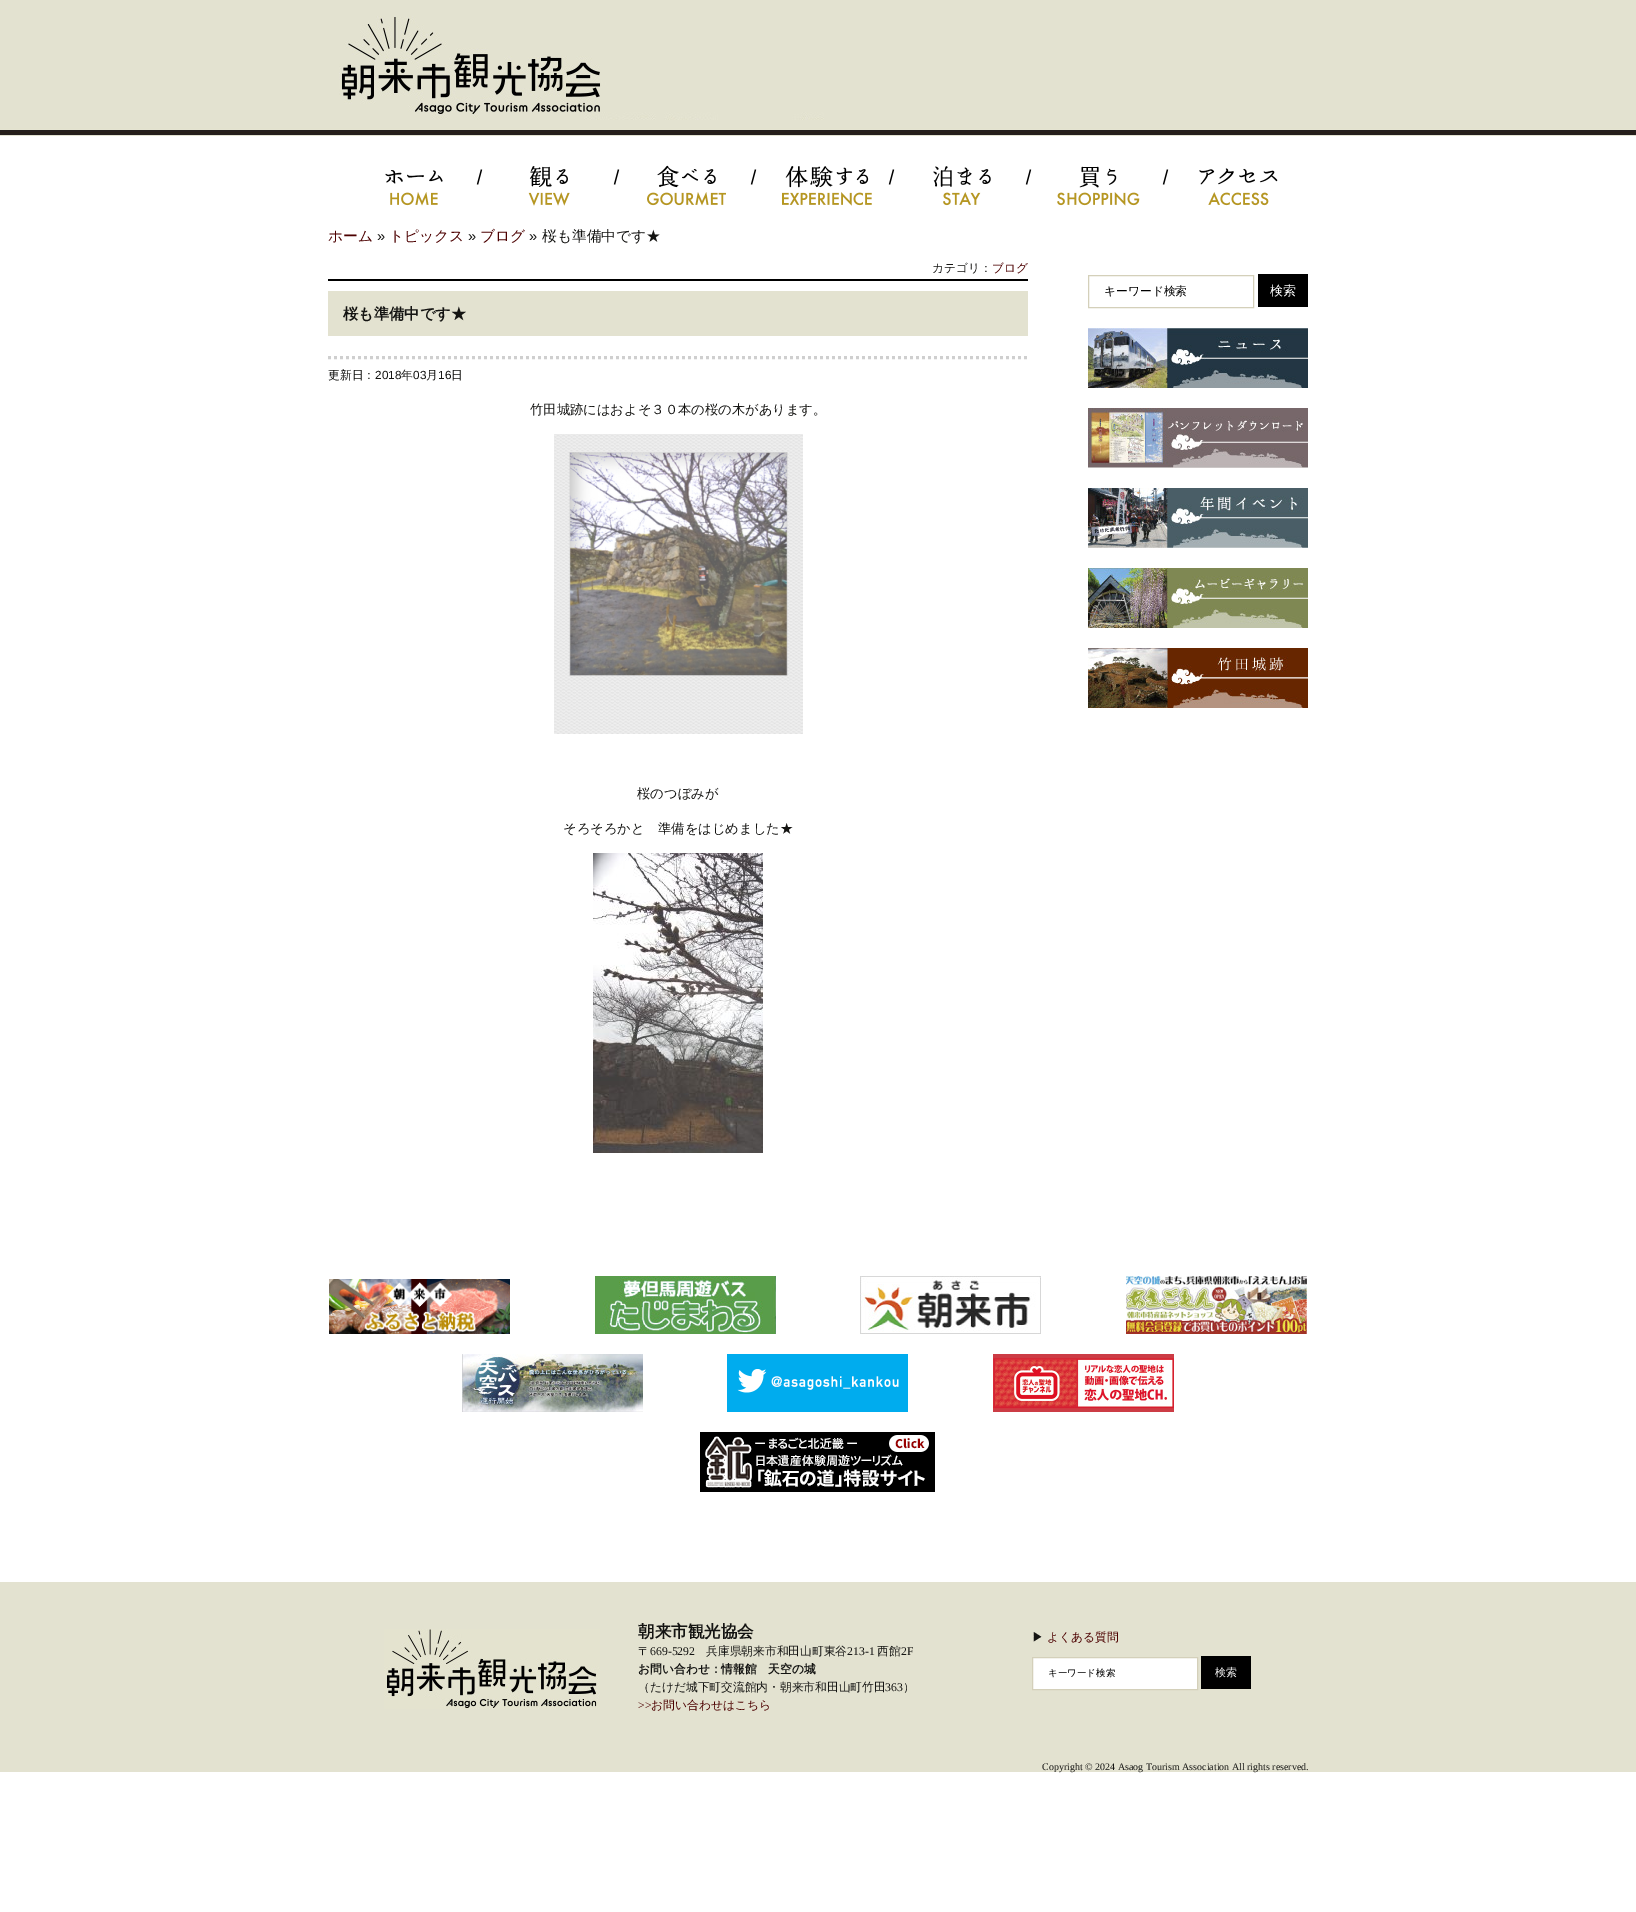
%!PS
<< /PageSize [1636 1912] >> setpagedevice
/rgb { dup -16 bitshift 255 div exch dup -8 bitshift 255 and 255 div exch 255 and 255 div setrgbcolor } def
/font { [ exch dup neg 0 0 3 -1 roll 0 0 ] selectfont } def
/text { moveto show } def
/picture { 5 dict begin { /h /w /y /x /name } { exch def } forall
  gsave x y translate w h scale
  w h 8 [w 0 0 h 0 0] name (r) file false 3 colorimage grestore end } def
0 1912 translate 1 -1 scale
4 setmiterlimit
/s1 { /WenQuanYiZenHei-Medium 14.75 font 16#4C0000 rgb } def
/s2 { /LiberationSans-Regular 14.75 font 16#141412 rgb } def
/s3 { /WenQuanYiZenHei-Medium 14.75 font 16#141412 rgb } def
/s4 { /WenQuanYiZenHei-Medium 11.75 font 16#141412 rgb } def
/s5 { /WenQuanYiZenHei-Medium 11.75 font 16#4C0000 rgb } def
/s6 { /WenQuanYiZenHei-Bold 15.25 font 16#141412 rgb } def
/s7 { /LiberationSans-Regular 11.75 font 16#141412 rgb } def
/s8 { /WenQuanYiZenHei-Medium 13.3 font 16#141412 rgb } def
/s9 { /WenQuanYiZenHei-Medium 11.75 font 16#000000 rgb } def
/s10 { /WenQuanYiZenHei-Medium 13 font 16#FFFFFF rgb } def
/s11 { /WenQuanYiZenHei-Bold 16.5 font 16#141412 rgb } def
/s12 { /LiberationSerif-Regular 11.75 font 16#141412 rgb } def
/s13 { /WenQuanYiZenHei-Bold 11.75 font 16#141412 rgb } def
/s14 { /LiberationSerif-Regular 11.75 font 16#4C0000 rgb } def
/s15 { /WenQuanYiZenHei-Medium 9.5 font 16#000000 rgb } def
/s16 { /WenQuanYiZenHei-Medium 11 font 16#FFFFFF rgb } def
/s17 { /LiberationSerif-Regular 10 font 16#141412 rgb } def
16#FFFFFF rgb
0 0 1636 1912 rectfill
(pic1.raw) 0 0 1636 136 picture
(pic2.raw) 339 16 485 104 picture
(pic3.raw) 385 170 58 36 picture
(pic4.raw) 476 166 94 40 picture
(pic5.raw) 613 165 113 41 picture
(pic6.raw) 750 166 122 40 picture
(pic7.raw) 888 166 103 40 picture
(pic8.raw) 1025 166 115 40 picture
(pic9.raw) 1162 168 116 38 picture
s1
(ホーム) 328 241 text
s2
(») 377 241 text
s1
(トピックス) 389 241 text
s2
(») 468 241 text
s1
(ブログ) 480 241 text
s2
(») 529 241 text
s3
(桜も準備中です★) 542 241 text
s4
(カテゴリ：) 932 272 text
s5
(ブログ) 992 272 text
16#000000 rgb
328 279 700 2 rectfill
16#CFCFCF rgb
3 setlinewidth
[3 3] 0 setdash
328 357.5 moveto 1028 357.5 lineto stroke
16#E3E2D0 rgb
328 291 700 45 rectfill
s6
(桜も準備中です★) 343 319 text
s4
(更新日：) 328 379 text
s7
(2018) 375 379 text
s4
(年) 401 379 text
s7
(03) 413 379 text
s4
(月) 426 379 text
s7
(16) 438 379 text
s4
(日) 451 379 text
s8
(竹田城跡にはおよそ３０本の桜の木があります。) 530 414 text
(pic10.raw) 554 434 249 300 picture
(桜のつぼみが) 637 798 text
(そろそろかと　準備をはじめました★) 563 833 text
(pic11.raw) 593 853 170 300 picture
16#D4D0BA rgb
1 setlinewidth
[] 0 setdash
1088.5 275.5 165 32 rectstroke
s9
(キーワード検索) 1104 295 text
1258 274 50 33 rectfill
s10
(検索) 1270 295 text
(pic12.raw) 1088 328 220 60 picture
(pic13.raw) 1088 408 220 60 picture
(pic14.raw) 1088 488 220 60 picture
(pic15.raw) 1088 568 220 60 picture
(pic16.raw) 1088 648 220 60 picture
(pic17.raw) 329 1279 181 55 picture
(pic18.raw) 595 1276 181 58 picture
(pic19.raw) 860 1276 181 58 picture
(pic20.raw) 1126 1276 181 58 picture
(pic21.raw) 462 1354 181 58 picture
(pic22.raw) 727 1354 181 58 picture
(pic23.raw) 993 1354 181 58 picture
(pic24.raw) 700 1432 235 60 picture
16#E3E2D0 rgb
0 1582 1636 190 rectfill
(pic25.raw) 384 1629 216 80 picture
s11
(朝来市観光協会) 638 1637 text
s4
(〒) 638 1655 text
s12
(669-5292) 650 1655 text
s4
(兵庫県朝来市和田山町東谷) 706 1655 text
s12
(213-1) 847 1655 text
s4
(西館) 877 1655 text
s12
(2F) 901 1655 text
s13
(お問い合わせ：情報館　天空の城) 638 1673 text
s4
(（たけだ城下町交流館内・朝来市和田山町竹田) 638 1691 text
s12
(363) 885 1691 text
s4
(）) 903 1691 text
s14
(>>) 638 1709 text
s5
(お問い合わせはこちら) 651 1709 text
s4
(▶) 1032 1641 text
s5
(よくある質問) 1047 1641 text
16#FFFFFF rgb
1032.5 1657.5 moveto 1197.5 1657.5 lineto 1197.5 1689.5 lineto 1032.5 1689.5 lineto closepath gsave fill grestore
16#D4D0BA rgb
stroke
s15
(キーワード検索) 1048 1676 text
1201 1656 50 33 rectfill
s16
(検索) 1215 1676 text
s17
(Copyright © 2024 Asaog Tourism Association All rights reserved.) 1042 1770 text
showpage
